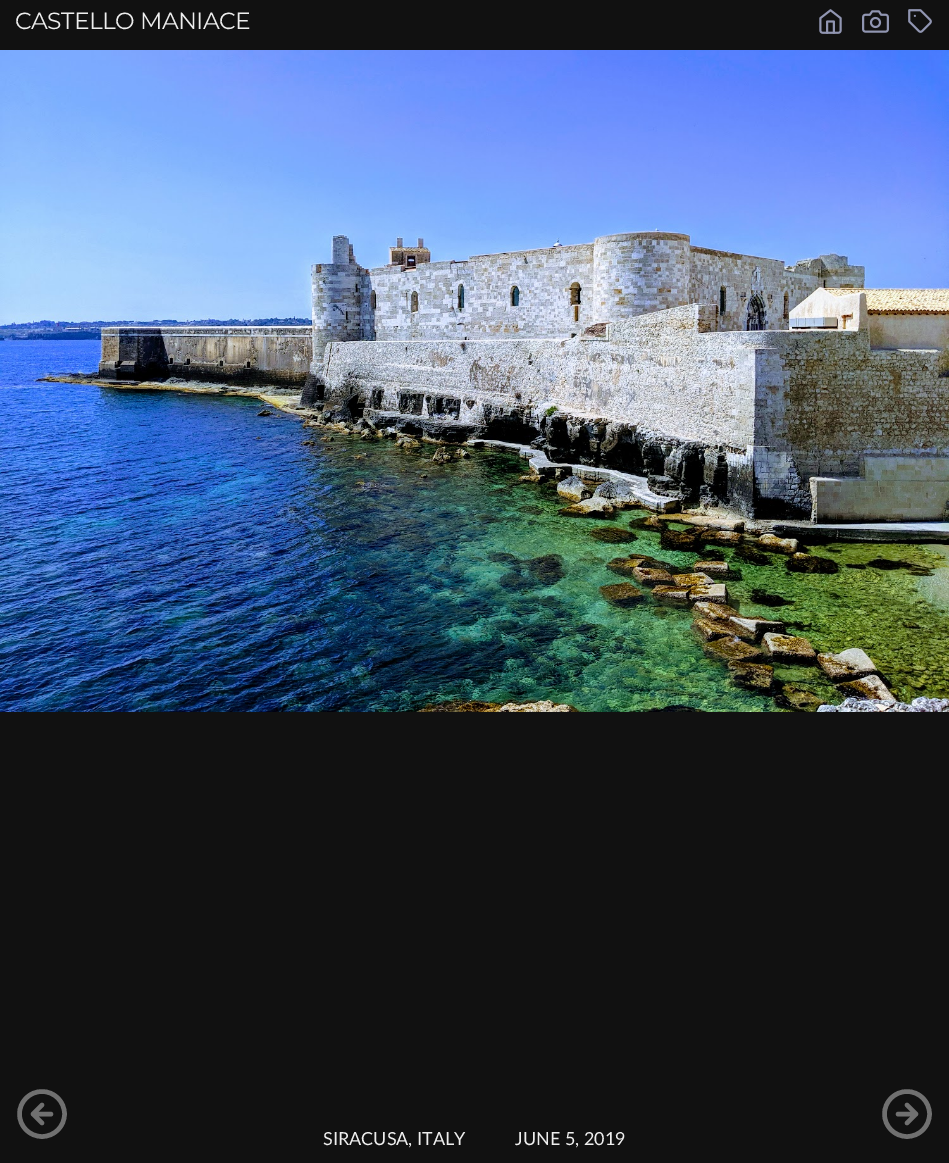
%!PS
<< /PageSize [949 1163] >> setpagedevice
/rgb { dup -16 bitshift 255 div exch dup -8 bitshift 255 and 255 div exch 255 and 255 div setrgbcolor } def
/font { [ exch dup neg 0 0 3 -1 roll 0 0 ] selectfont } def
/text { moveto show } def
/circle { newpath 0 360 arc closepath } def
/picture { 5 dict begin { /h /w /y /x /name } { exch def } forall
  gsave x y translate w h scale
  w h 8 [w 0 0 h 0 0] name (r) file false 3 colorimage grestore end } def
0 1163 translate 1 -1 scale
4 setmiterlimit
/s1 { /Lato-Regular 18 font 16#EEEEEE rgb } def
16#111111 rgb
0 0 949 1163 rectfill
/Montserrat-Regular 23.4 font
16#EEEEEE rgb
15 29 moveto -0.6 0 (CASTELLO MANIACE) ashow
(pic1.raw) 819 9 23 25 picture
(pic2.raw) 862 10 27 23 picture
(pic3.raw) 908 9 24 24 picture
(pic4.raw) 0 50 949 662 picture
16#707070 rgb
4.5 setlinewidth
42 1114 22.5 circle stroke
1 setlinecap
1 setlinejoin
42 1105 moveto 33 1114 lineto 42 1123 lineto 51 1114 moveto 33 1114 lineto stroke
s1
(SIRACUSA, ITALY) 323 1145 text
(JUNE 5, 2019) 515 1145 text
16#707070 rgb
0 setlinecap
0 setlinejoin
907 1114 22.5 circle stroke
1 setlinecap
1 setlinejoin
907 1123 moveto 916 1114 lineto 907 1105 lineto 898 1114 moveto 916 1114 lineto stroke
showpage
